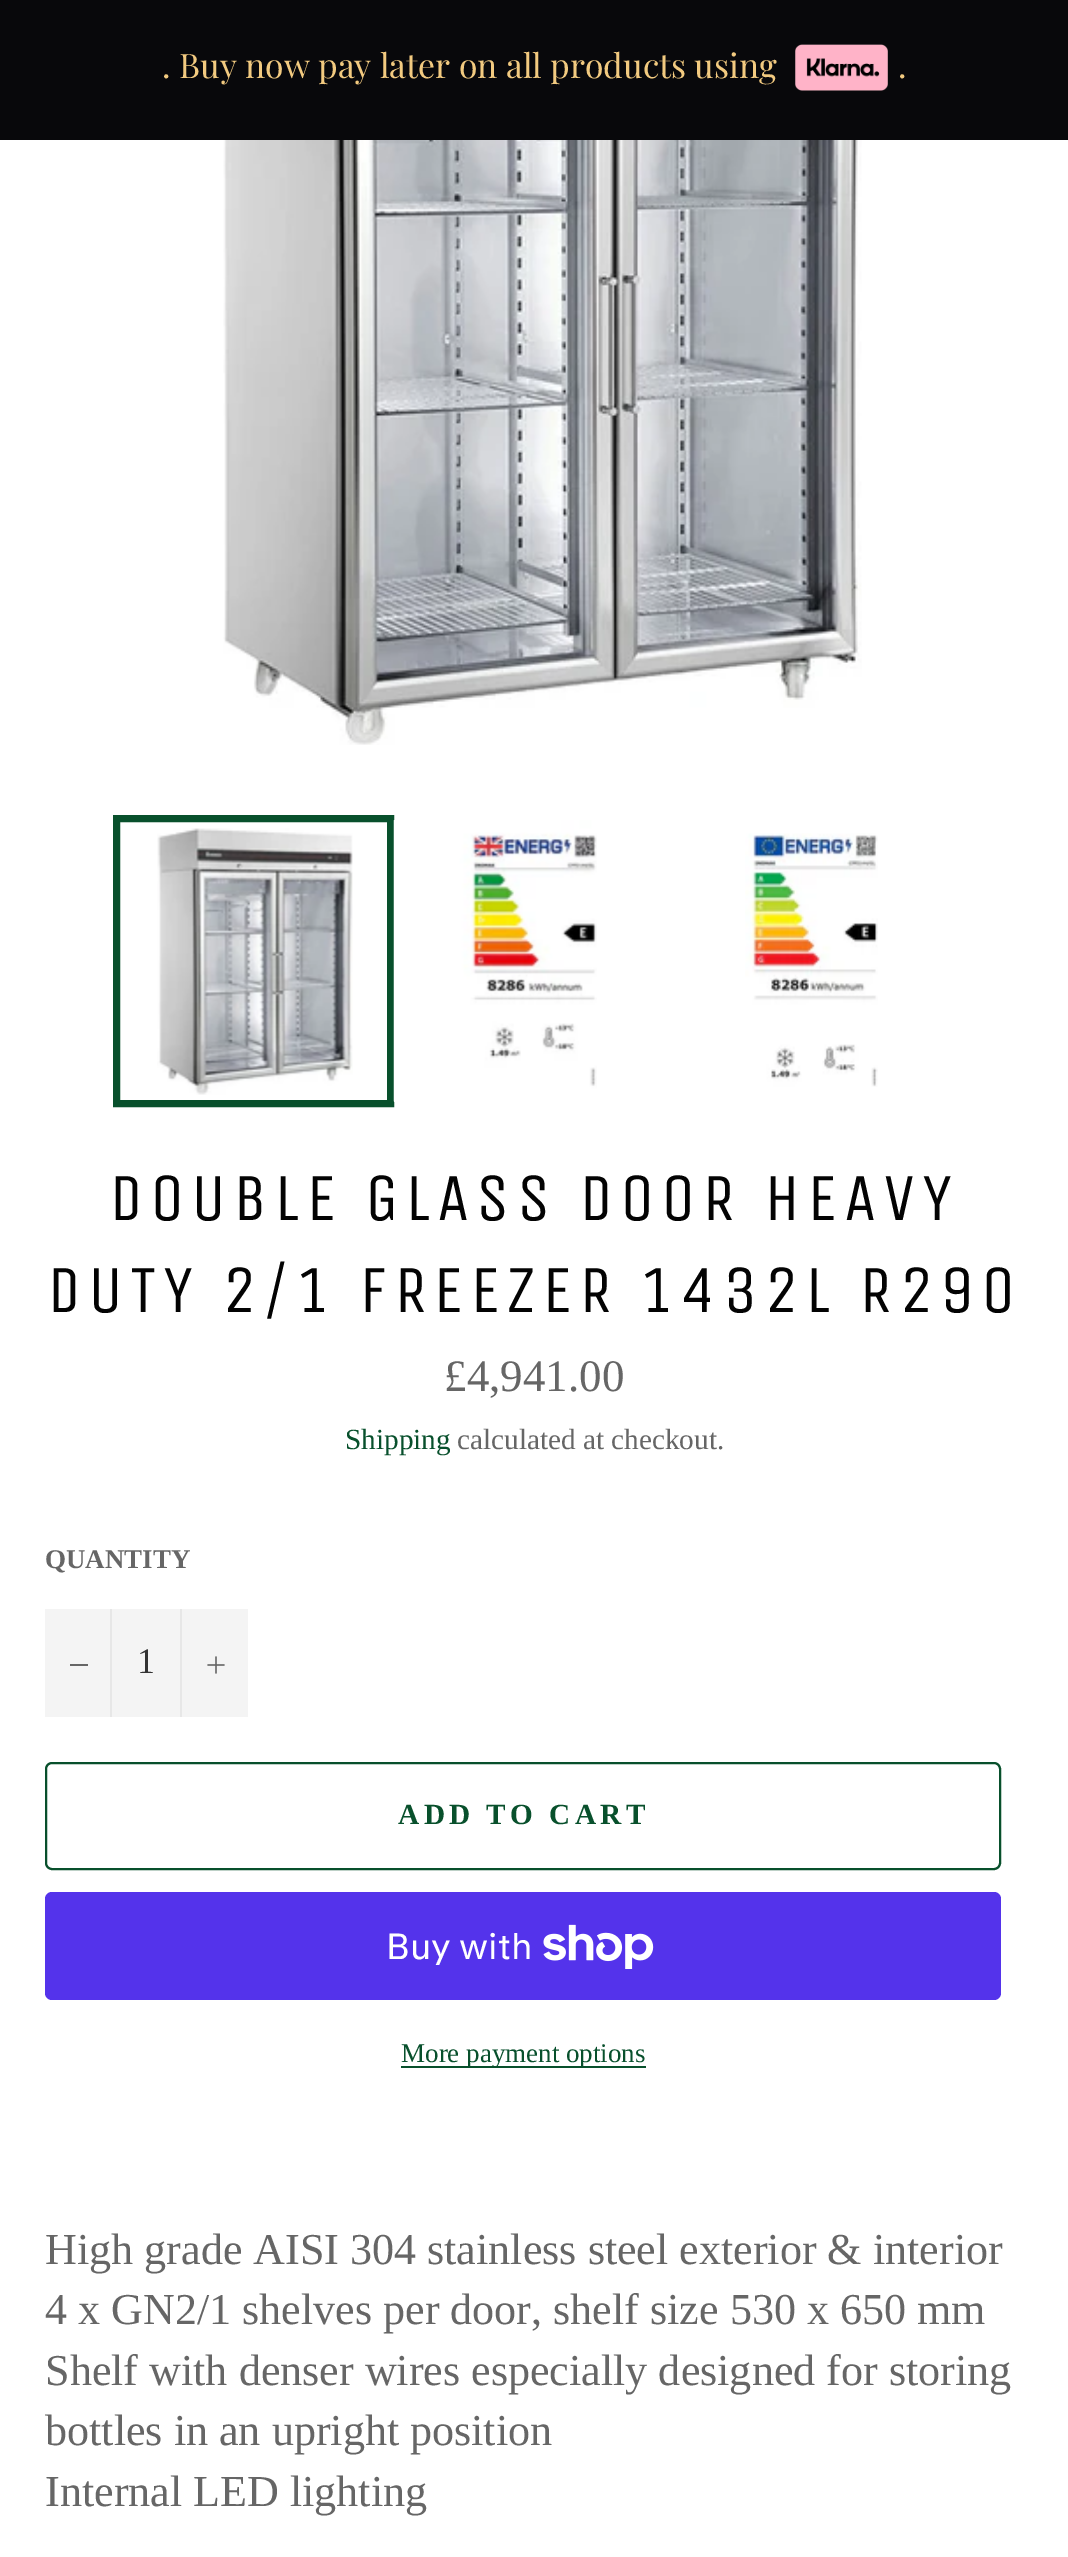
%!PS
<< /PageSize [1068 2557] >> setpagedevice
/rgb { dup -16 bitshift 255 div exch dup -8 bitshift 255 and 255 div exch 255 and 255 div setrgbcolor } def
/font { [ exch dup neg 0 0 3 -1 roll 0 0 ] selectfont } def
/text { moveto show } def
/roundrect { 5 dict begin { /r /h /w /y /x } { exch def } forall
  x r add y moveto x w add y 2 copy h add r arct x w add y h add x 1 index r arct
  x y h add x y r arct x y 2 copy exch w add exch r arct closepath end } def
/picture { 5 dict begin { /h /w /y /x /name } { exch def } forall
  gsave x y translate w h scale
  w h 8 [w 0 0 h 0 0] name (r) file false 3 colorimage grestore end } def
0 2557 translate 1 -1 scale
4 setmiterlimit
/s1 { /PlayfairDisplay-Regular 33.75 font 16#F2CA80 rgb } def
/s2 { /LiberationSerif-Regular 45 font 16#666666 rgb } def
/s3 { /LiberationSerif-Regular 29.25 font 16#08502C rgb } def
/s4 { /LiberationSerif-Regular 29.25 font 16#666666 rgb } def
/s5 { /LiberationSerif-Bold 27 font 16#666666 rgb } def
/s6 { /LiberationSerif-Regular 36 font 16#333333 rgb } def
/s7 { /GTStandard-Regular 36 font 16#FFFFFF rgb } def
/s8 { /LiberationSerif-Regular 27 font 16#08502C rgb } def
/s9 { /LiberationSerif-Regular 44.1 font 16#666666 rgb } def
16#FFFFFF rgb
0 0 1068 2557 rectfill
16#08080B rgb
0 0 1068 140 rectfill
s1
(. Buy now pay later on all products using) 162 78 text
(pic1.raw) 795 44 93 47 picture
(.) 898 78 text
(pic2.raw) 223 140 639 605 picture
(pic3.raw) 157 828 196 267 picture
16#08502C rgb
7 setlinewidth
116.5 818.5 274 285 rectstroke
(pic4.raw) 393 820 204 282 picture
(pic5.raw) 745 833 133 254 picture
/UnicaOne-Regular 67.5 font
16#030303 rgb
109 1220 moveto 6.75 0 (DOUBLE GLASS DOOR HEAVY) ashow
47 1312 moveto 6.75 0 (DUTY 2/1 FREEZER 1432L R290) ashow
s2
(£4,941.00) 444 1391 text
s3
(Shipping) 345 1449 text
s4
(calculated at checkout.) 457 1449 text
s5
(QUANTITY) 45 1568 text
16#F4F4F4 rgb
45 1609 203 108 rectfill
16#E7E7E7 rgb
110 1609 2 108 rectfill
16#666666 rgb
70 1664 18 2 rectfill
s6
(1) 137 1673 text
16#E7E7E7 rgb
180 1609 2 108 rectfill
(pic6.raw) 207 1656 18 18 picture
16#08502C rgb
2 setlinewidth
46 1763 954 106 6 roundrect stroke
/LiberationSerif-Bold 29.25 font
398 1824 moveto 4.4 0 (ADD TO CART) ashow
16#5433EB rgb
45 1892 956 108 7 roundrect fill
s7
(Buy with) 386 1959 text
(pic7.raw) 543 1924 111 45 picture
16#08502C rgb
401 2066 245 2 rectfill
s8
(More payment options) 401 2062 text
s9
(High grade AISI 304 stainless steel exterior & interior) 45 2264 text
(4 x GN2/1 shelves per door, shelf size 530 x 650 mm) 45 2324 text
(Shelf with denser wires especially designed for storing) 45 2385 text
(bottles in an upright position) 45 2445 text
(Internal LED lighting) 45 2506 text
showpage
